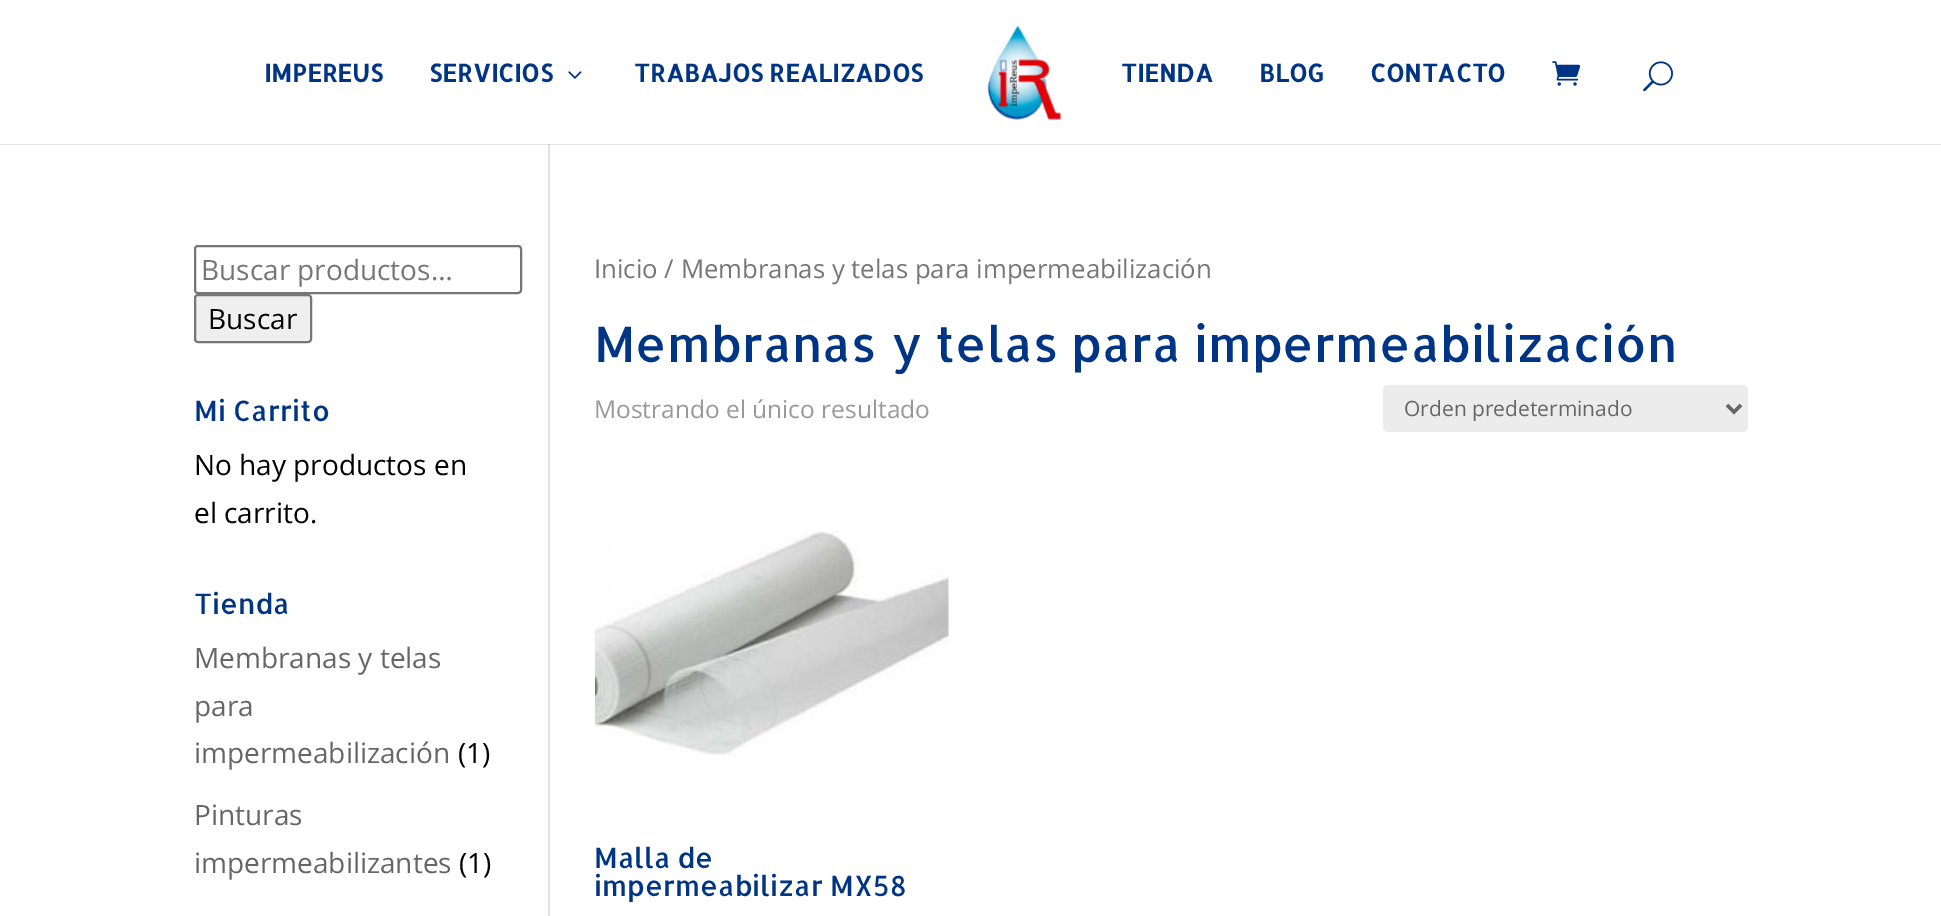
%!PS
<< /PageSize [1941 916] /PageUsesTransparency true >> setpagedevice
/rgb { dup -16 bitshift 255 div exch dup -8 bitshift 255 and 255 div exch 255 and 255 div setrgbcolor } def
/font { [ exch dup neg 0 0 3 -1 roll 0 0 ] selectfont } def
/text { moveto show } def
/alpha { dup .setfillconstantalpha .setstrokeconstantalpha } def
/roundrect { 5 dict begin { /r /h /w /y /x } { exch def } forall
  x r add y moveto x w add y 2 copy h add r arct x w add y h add x 1 index r arct
  x y h add x y r arct x y 2 copy exch w add exch r arct closepath end } def
/picture { 5 dict begin { /h /w /y /x /name } { exch def } forall
  gsave x y translate w h scale
  w h 8 [w 0 0 h 0 0] name (r) file false 3 colorimage grestore end } def
0 .pushpdf14devicefilter
0 916 translate 1 -1 scale
4 setmiterlimit
/s1 { /Allerta-Bold 24.5 font 16#003484 rgb } def
/s2 { /OpenSans-Regular 28 font 16#767676 rgb } def
/s3 { /OpenSans-Regular 28 font 16#000000 rgb } def
/s4 { /Allerta-Regular 28 font 16#003484 rgb } def
/s5 { /OpenSans-Regular 28 font 16#666666 rgb } def
/s6 { /OpenSans-Regular 25.75 font 16#767676 rgb } def
/s7 { /Allerta-Regular 49 font 16#003484 rgb } def
/s8 { /OpenSans-Regular 24.5 font 16#999999 rgb } def
/s9 { /OpenSans-Regular 21 font 16#666666 rgb } def
16#FFFFFF rgb
0 0 1941 916 rectfill
16#E2E2E2 rgb
548 144 2 772 rectfill
0.1 alpha
16#000000 rgb
0 144 moveto 0 145 lineto 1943 145 lineto 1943 2 lineto 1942 2 lineto 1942 144 lineto closepath fill
1 alpha
s1
(IMPEREUS) 264 82 text
(SERVICIOS) 429 82 text
(pic1.raw) 568 71 14 8 picture
(TRABAJOS REALIZADOS) 634 82 text
(pic2.raw) 987 25 74 95 picture
(TIENDA) 1121 82 text
(BLOG) 1259 82 text
(CONTACTO) 1370 82 text
(pic3.raw) 1552 61 29 25 picture
(pic4.raw) 1643 61 30 31 picture
16#767676 rgb
2 setlinewidth
195 246 326 47 3 roundrect stroke
s2
(Buscar productos…) 201 280 text
16#EFEFEF rgb
195 295 116 47 3 roundrect gsave fill grestore
16#767676 rgb
stroke
s3
(Buscar) 208 329 text
s4
(Mi Carrito) 194 421 text
s3
(No hay productos en) 194 475 text
(el carrito.) 194 523 text
s4
(Tienda) 194 614 text
s5
(Membranas y telas) 194 668 text
(para) 194 716 text
(impermeabilización) 194 763 text
s3
(\(1\)) 458 763 text
s5
(Pinturas) 194 825 text
(impermeabilizantes) 194 873 text
s3
(\(1\)) 459 873 text
s6
(Inicio / Membranas y telas para impermeabilización) 594 278 text
s7
(Membranas y telas para impermeabilización) 594 362 text
s8
(Mostrando el único resultado) 594 418 text
16#ECECEC rgb
1383 385 365 47 5 roundrect fill
16#666666 rgb
3.5 setlinewidth
1727 405 moveto 1734 412 lineto 1741 405 lineto stroke
s9
(Orden predeterminado) 1404 416 text
(pic5.raw) 595 531 354 225 picture
s4
(Malla de) 594 868 text
(impermeabilizar MX58) 594 896 text
.poppdf14devicefilter showpage
